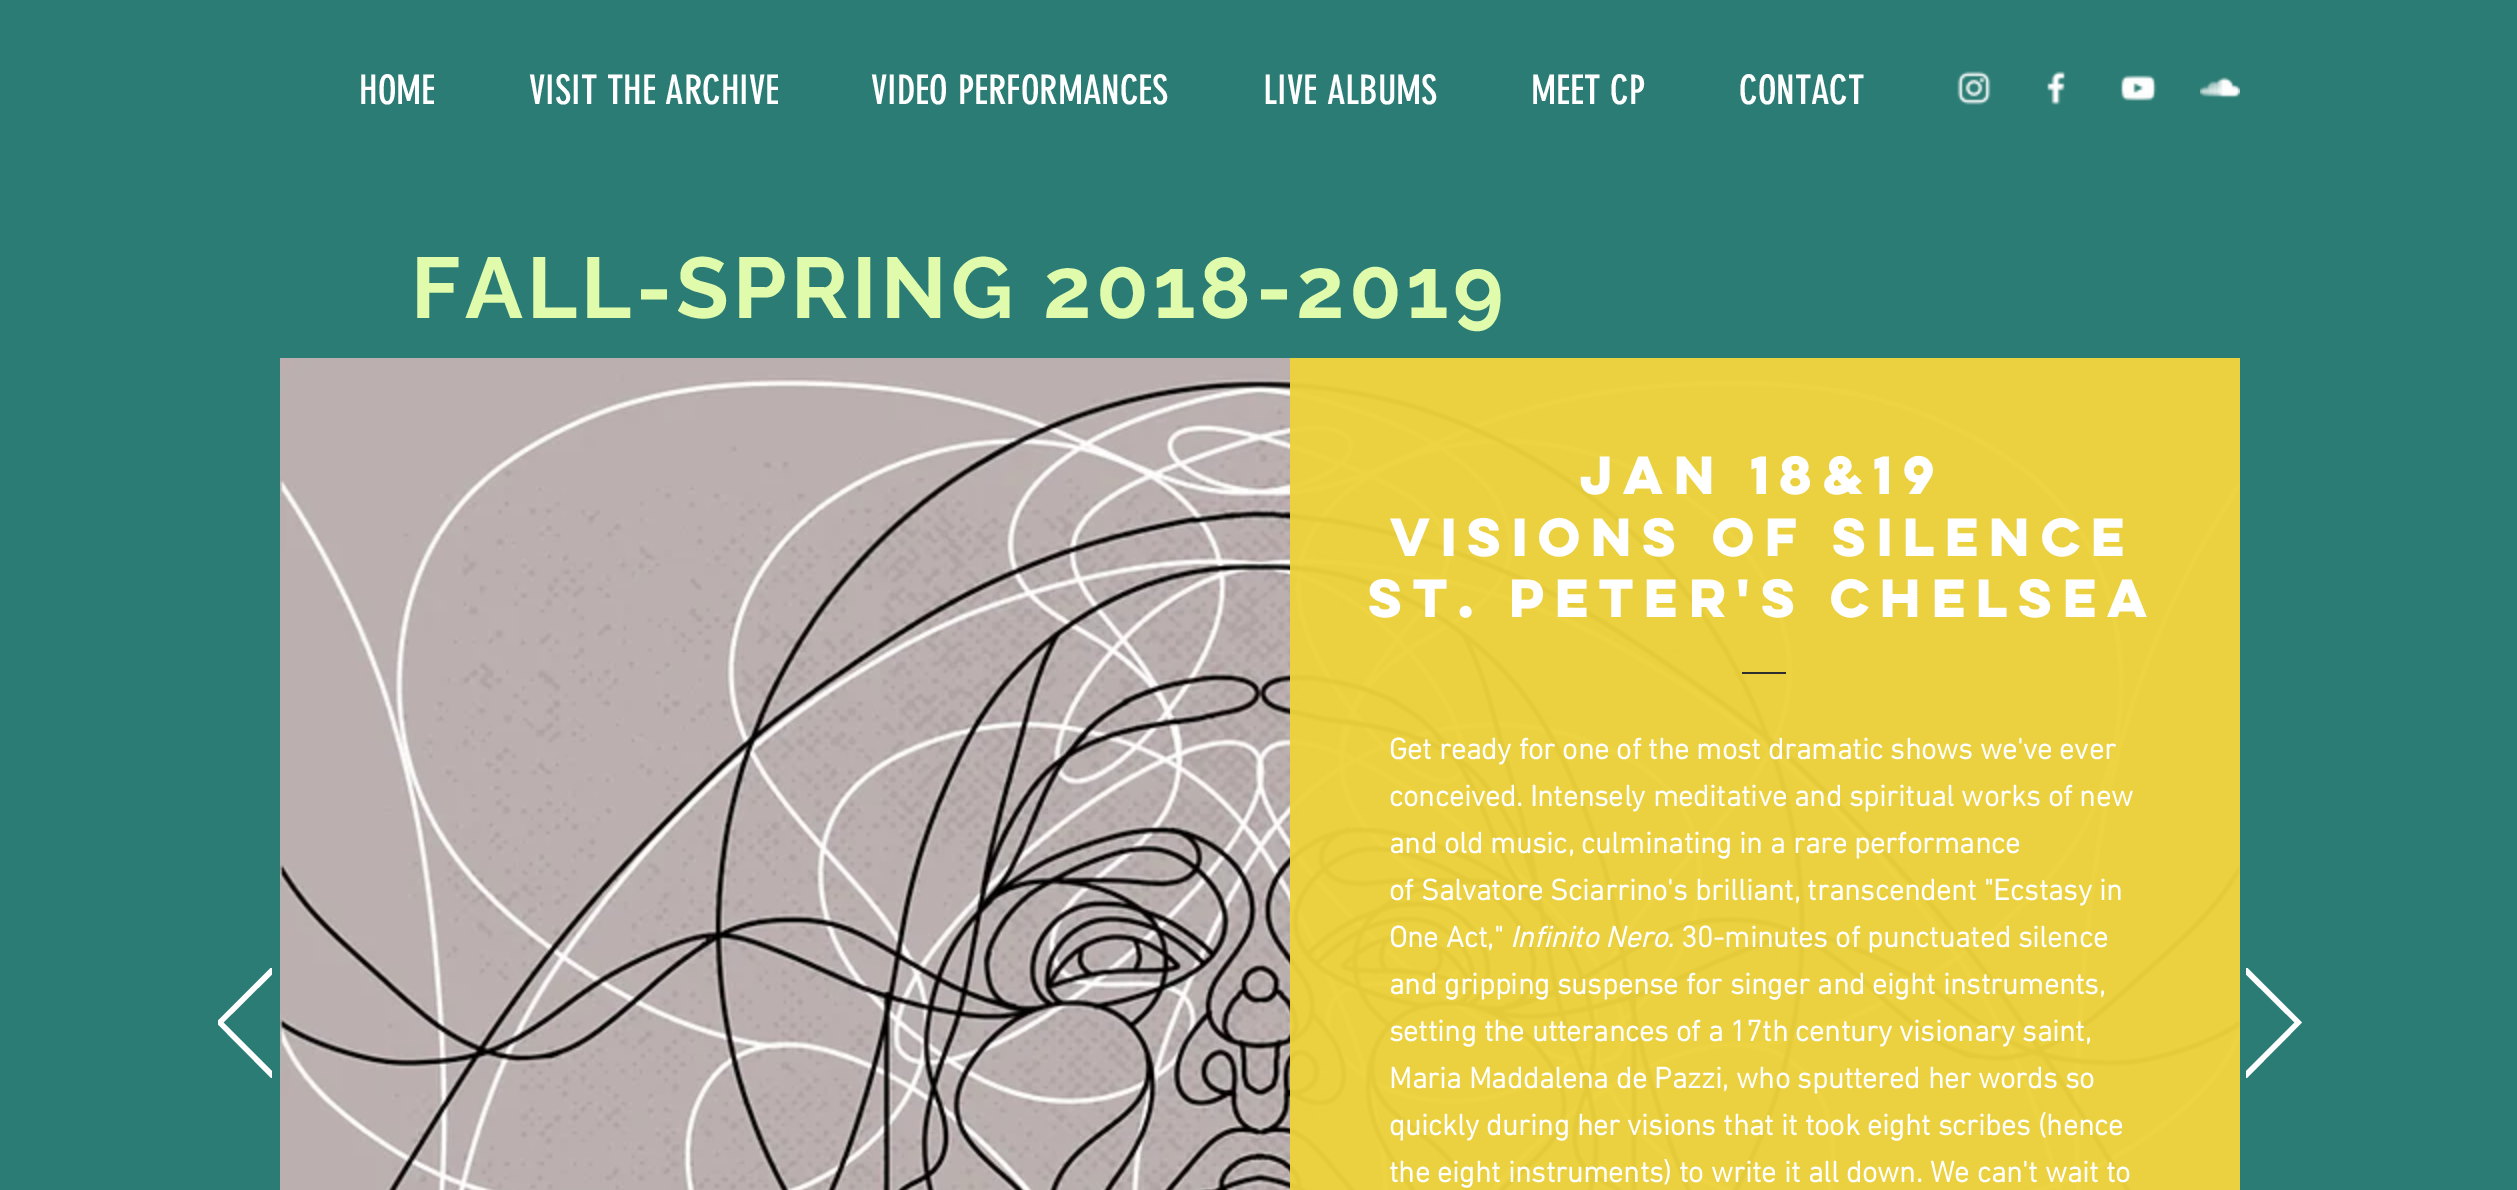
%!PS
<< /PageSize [2517 1190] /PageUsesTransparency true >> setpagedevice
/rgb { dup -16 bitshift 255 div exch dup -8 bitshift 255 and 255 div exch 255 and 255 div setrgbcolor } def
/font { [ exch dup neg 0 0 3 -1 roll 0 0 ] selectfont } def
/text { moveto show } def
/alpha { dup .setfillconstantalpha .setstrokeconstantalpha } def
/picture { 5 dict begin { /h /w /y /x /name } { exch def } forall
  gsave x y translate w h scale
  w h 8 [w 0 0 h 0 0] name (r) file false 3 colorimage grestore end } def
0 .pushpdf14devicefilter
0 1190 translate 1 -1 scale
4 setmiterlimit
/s1 { /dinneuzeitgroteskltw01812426-Regular 40 font 16#FFFFFF rgb } def
/s2 { /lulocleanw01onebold-Bold 48 font 16#FFFFFF rgb } def
/s3 { /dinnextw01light-Bold 30 font 16#FFFFFF rgb } def
/s4 { /dinnextw01light-BoldItalic 30 font 16#FFFFFF rgb } def
16#2B7C74 rgb
0 0 2517 1190 rectfill
s1
(HOME) 359 104 text
(VISIT THE ARCHIVE) 529 104 text
(VIDEO PERFORMANCES) 871 104 text
(LIVE ALBUMS) 1263 104 text
(MEET CP) 1531 104 text
(CONTACT) 1739 104 text
(pic1.raw) 1957 71 34 34 picture
(pic2.raw) 2047 71 19 34 picture
(pic3.raw) 2120 75 37 26 picture
(pic4.raw) 2200 77 40 21 picture
/Raleway-Bold 86 font
16#E0FBAB rgb
411 318 moveto 4.3 0 (FALL-SPRING 2018-2019) ashow
gsave
218 968 54 110 rectclip
16#FFFFFF rgb
2.7 setlinewidth
272 1077 moveto 218 1022.5 lineto 272 968.5 lineto 274 970.5 lineto 221.5 1022.5 lineto 274 1075 lineto closepath stroke
grestore
(pic5.raw) 280 358 1960 832 picture
0.96 alpha
16#EDD23B rgb
1290 358 950 832 rectfill
1 alpha
s2
(JAN 18&19) 1580 494 text
(VISIONS OF SILENCE) 1390 556 text
(St. Peter'S chelsea) 1368 617 text
16#2F2E2E rgb
1742 672 44 2 rectfill
s3
(Get ready for one of the most dramatic shows we've ever) 1389 759 text
(conceived. Intensely meditative and spiritual works of new) 1389 806 text
(and old music, culminating in a rare performance) 1389 853 text
(of Salvatore Sciarrino's brilliant, transcendent "Ecstasy in) 1389 900 text
(One Act,") 1389 947 text
s4
(Infinito Nero.) 1510 947 text
s3
(30-minutes of punctuated silence) 1681 947 text
(and gripping suspense for singer and eight instruments,) 1389 994 text
(setting the utterances of a 17th century visionary saint,) 1389 1041 text
(Maria Maddalena de Pazzi, who sputtered her words so) 1389 1088 text
(quickly during her visions that it took eight scribes \(hence) 1389 1135 text
(the eight instruments\) to write it all down. We can't wait to) 1389 1182 text
gsave
2246 968 56 110 rectclip
2.7 setlinewidth
2246 1077 moveto 2300 1022.5 lineto 2246 968.5 lineto 2244 970.5 lineto 2296.5 1022.5 lineto 2244 1075 lineto closepath stroke
grestore
.poppdf14devicefilter showpage
